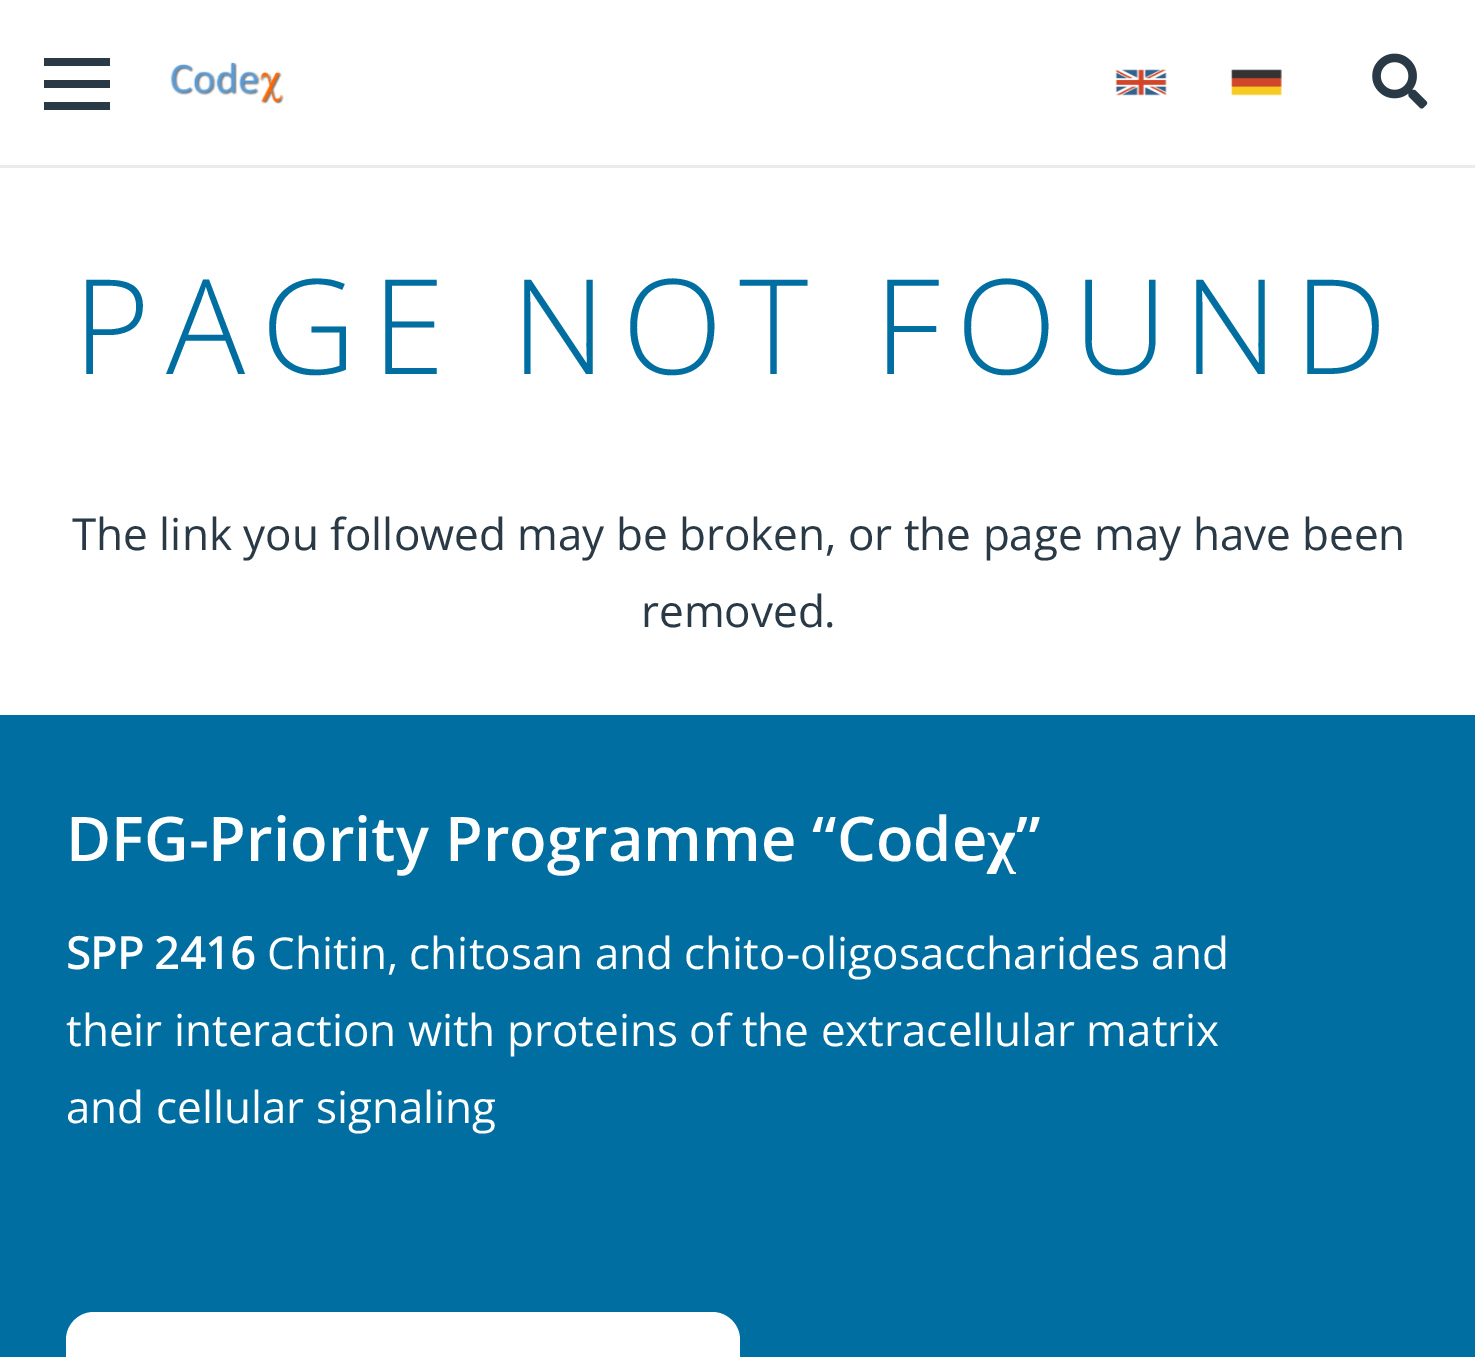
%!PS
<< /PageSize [1475 1357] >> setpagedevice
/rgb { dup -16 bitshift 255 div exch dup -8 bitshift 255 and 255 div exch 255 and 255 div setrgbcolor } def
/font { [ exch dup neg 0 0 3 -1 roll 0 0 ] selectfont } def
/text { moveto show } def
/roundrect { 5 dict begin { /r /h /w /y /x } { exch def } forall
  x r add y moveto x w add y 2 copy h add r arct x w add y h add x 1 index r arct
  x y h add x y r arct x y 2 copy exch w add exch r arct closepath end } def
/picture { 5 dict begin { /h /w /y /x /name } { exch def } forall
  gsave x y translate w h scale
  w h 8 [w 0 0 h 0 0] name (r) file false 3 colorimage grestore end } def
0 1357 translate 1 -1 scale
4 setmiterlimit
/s1 { /OpenSans-Regular 44 font 16#293945 rgb } def
/s2 { /OpenSans-SemiBold 61.6 font 16#FFFFFF rgb } def
/s3 { /LiberationSerif-Bold 61.6 font 16#FFFFFF rgb } def
/s4 { /OpenSans-Bold 44 font 16#FFFFFF rgb } def
/s5 { /OpenSans-Regular 44 font 16#FFFFFF rgb } def
16#FFFFFF rgb
0 0 1475 1357 rectfill
16#EBEBEB rgb
0 165 moveto 0 168 lineto 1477 168 lineto 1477 3 lineto 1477 165 lineto closepath fill
16#293945 rgb
44 80 66 8 rectfill
44 58 66 8 rectfill
44 102 66 8 rectfill
(pic1.raw) 170 62 114 42 picture
(pic2.raw) 1115 69 52 27 picture
(pic3.raw) 1230 69 52 27 picture
(pic4.raw) 1372 53 56 56 picture
/OpenSans-Light 132 font
16#006EA0 rgb
73 374 moveto 15.8 0 (PAGE NOT FOUND) ashow
s1
(The link you followed may be broken, or the page may have been) 72 550 text
(removed.) 641 627 text
16#006EA0 rgb
0 715 1475 642 rectfill
s2
(DFG-Priority Programme “Code) 66 861 text
(”) 1016 861 text
s3
(χ) 987 861 text
s4
(SPP 2416) 66 969 text
s5
(Chitin, chitosan and chito-oligosaccharides and) 267 969 text
(their interaction with proteins of the extracellular matrix) 66 1046 text
(and cellular signaling) 66 1123 text
66 1312 674 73 28 roundrect fill
showpage
